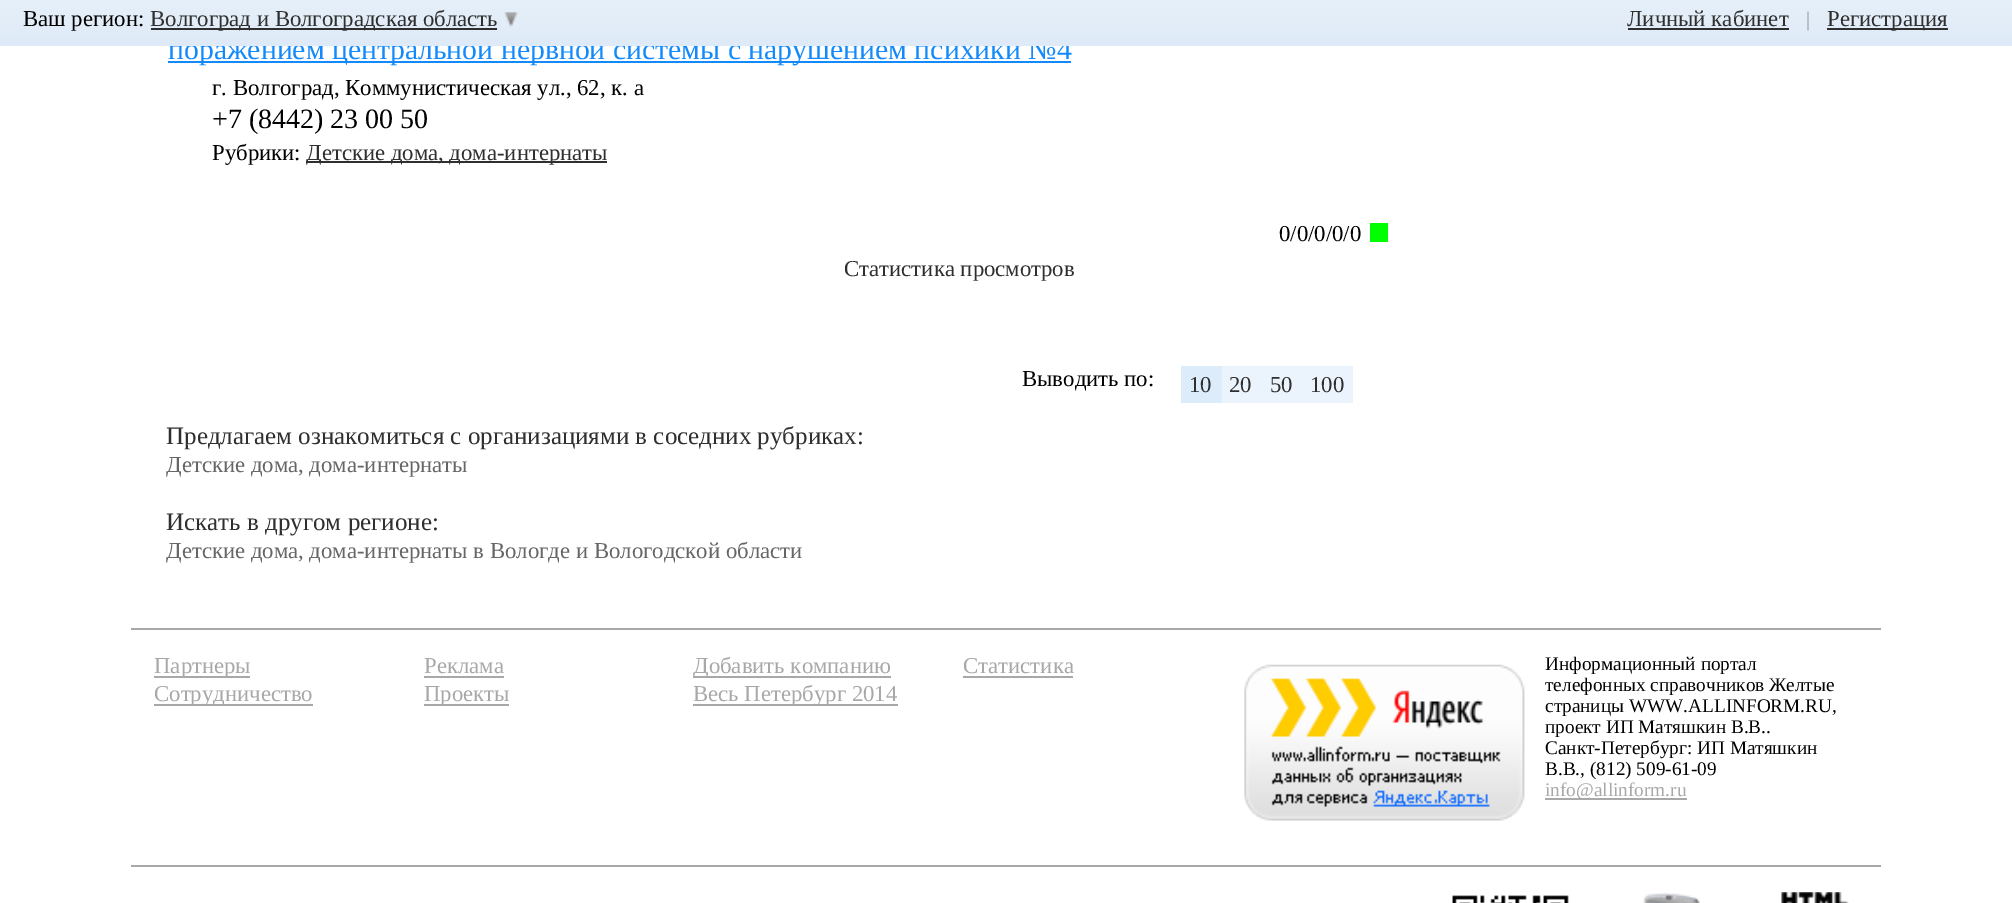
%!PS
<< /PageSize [2012 903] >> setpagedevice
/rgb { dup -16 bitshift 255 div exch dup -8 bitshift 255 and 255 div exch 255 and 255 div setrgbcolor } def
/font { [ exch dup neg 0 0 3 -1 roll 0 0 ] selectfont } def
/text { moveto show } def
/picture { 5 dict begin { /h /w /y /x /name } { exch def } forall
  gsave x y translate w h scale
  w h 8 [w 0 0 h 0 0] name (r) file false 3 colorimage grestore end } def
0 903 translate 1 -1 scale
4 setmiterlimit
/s1 { /LiberationSerif-Regular 29.75 font 16#128AFB rgb } def
/s2 { /LiberationSerif-Regular 22.75 font 16#000000 rgb } def
/s3 { /LiberationSerif-Regular 22.75 font 16#2F2F2F rgb } def
/s4 { /LiberationSerif-Regular 21 font 16#999999 rgb } def
/s5 { /LiberationSerif-Regular 28 font 16#000000 rgb } def
/s6 { /LiberationSerif-Regular 25 font 16#2F2F2F rgb } def
/s7 { /LiberationSerif-Regular 22.75 font 16#666666 rgb } def
/s8 { /LiberationSerif-Regular 22.75 font 16#A8A8A8 rgb } def
/s9 { /LiberationSerif-Regular 19.25 font 16#000000 rgb } def
/s10 { /LiberationSerif-Regular 19.25 font 16#A8A8A8 rgb } def
16#FFFFFF rgb
0 0 2012 903 rectfill
16#128AFB rgb
168 61 903 2 rectfill
s1
(поражением центральной нервной системы с нарушением психики №4) 168 59 text
gsave 0 0 moveto 2012 0 lineto 2012 46 lineto 0 46 lineto closepath clip newpath
<< /ShadingType 2 /ColorSpace /DeviceRGB /Coords [1012 0 1012 46] /Extend [true true] /Function << /FunctionType 2 /Domain [0 1] /C0 [0.902 0.941 0.98] /C1 [0.871 0.918 0.969] /N 1 >> >> shfill grestore
s2
(Ваш регион:) 23 26 text
16#2F2F2F rgb
151 28 346 2 rectfill
(Волгоград и Волгоградская область) 150 26 text
(pic1.raw) 504 11 15 16 picture
(Личный кабинет) 1627 26 text
1628 28 161 2 rectfill
s4
(|) 1806 26 text
16#2F2F2F rgb
1827 28 121 2 rectfill
s3
(Регистрация) 1827 26 text
s2
(г. Волгоград, Коммунистическая ул., 62, к. а) 212 95 text
s5
(+7 \(8442\) 23 00 50) 212 128 text
s2
(Рубрики:) 212 160 text
16#2F2F2F rgb
306 161 301 2 rectfill
(Детские дома, дома-интернаты) 306 160 text
s2
(0/0/0/0/0) 1279 241 text
16#00FF00 rgb
1370 223 18 19 rectfill
s3
(Статистика просмотров) 844 276 text
s2
(Выводить по:) 1022 386 text
16#DCECFB rgb
1181 366 41 37 rectfill
s3
(10) 1189 392 text
16#EBF4FD rgb
1222 366 131 37 rectfill
s3
(20) 1229 392 text
(50) 1270 392 text
(100) 1310 392 text
s6
(Предлагаем ознакомиться с организациями в соседних рубриках:) 166 444 text
s7
(Детские дома, дома-интернаты) 166 472 text
s6
(Искать в другом регионе:) 166 530 text
s7
(Детские дома, дома-интернаты в Вологде и Вологодской области) 166 558 text
16#A8A8A8 rgb
131 628 1750 2 rectfill
131 865 1750 2 rectfill
154 676 96 2 rectfill
(Партнеры) 154 673 text
154 704 159 2 rectfill
(Сотрудничество) 154 701 text
(Реклама) 424 673 text
424 676 80 2 rectfill
424 704 85 2 rectfill
(Проекты) 424 701 text
693 676 198 2 rectfill
(Добавить компанию) 693 673 text
693 704 205 2 rectfill
(Весь Петербург 2014) 693 701 text
(Статистика) 963 673 text
963 676 110 2 rectfill
(pic2.raw) 1244 664 281 157 picture
s9
(Информационный портал) 1545 670 text
(телефонных справочников Желтые) 1545 691 text
(страницы WWW.ALLINFORM.RU,) 1545 712 text
(проект ИП Матяшкин В.В..) 1545 733 text
(Санкт-Петербург: ИП Матяшкин) 1545 754 text
(В.В., \(812\) 509-61-09) 1545 775 text
16#A8A8A8 rgb
1545 798 142 2 rectfill
(info@allinform.ru) 1545 796 text
(pic3.raw) 1452 895 117 8 picture
(pic4.raw) 1643 892 57 11 picture
(pic5.raw) 1781 892 68 11 picture
showpage
